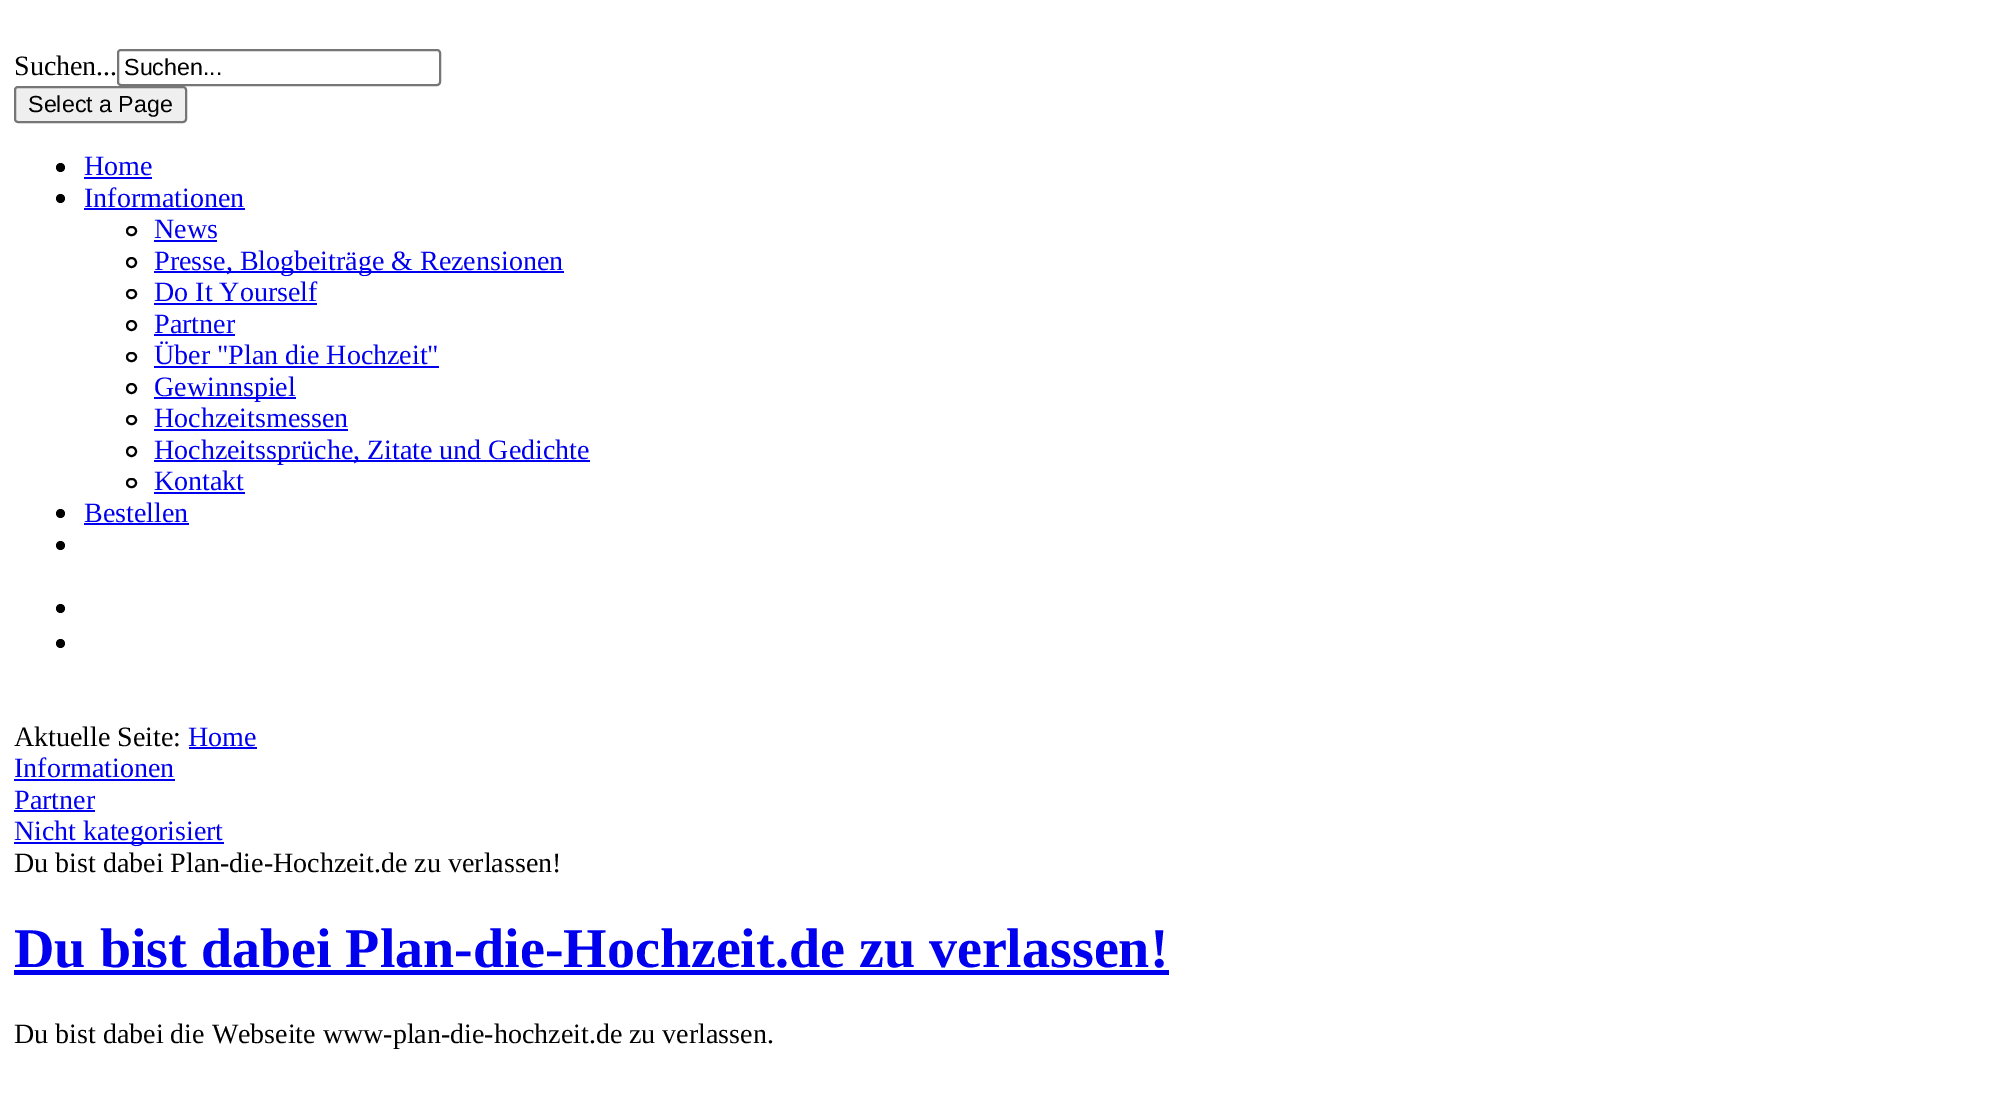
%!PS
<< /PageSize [2009 1094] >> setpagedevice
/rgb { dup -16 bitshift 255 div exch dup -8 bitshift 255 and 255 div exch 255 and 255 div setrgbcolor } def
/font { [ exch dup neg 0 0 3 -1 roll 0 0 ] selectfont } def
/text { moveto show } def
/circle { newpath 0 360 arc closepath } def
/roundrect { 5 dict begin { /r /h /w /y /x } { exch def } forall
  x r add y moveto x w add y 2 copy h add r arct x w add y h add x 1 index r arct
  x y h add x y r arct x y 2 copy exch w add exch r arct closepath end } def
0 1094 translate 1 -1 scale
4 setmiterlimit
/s1 { /LiberationSerif-Regular 28 font 16#000000 rgb } def
/s2 { /LiberationSans-Regular 23.25 font 16#000000 rgb } def
/s3 { /LiberationSerif-Regular 28 font 16#0000EE rgb } def
/s4 { /LiberationSerif-Bold 56 font 16#0000EE rgb } def
16#FFFFFF rgb
0 0 2009 1094 rectfill
s1
(Suchen...) 14 75 text
16#767676 rgb
2 setlinewidth
118 50 322 35 3 roundrect stroke
s2
(Suchen...) 124 75 text
16#EFEFEF rgb
15 87 171 35 3 roundrect gsave fill grestore
16#767676 rgb
stroke
s2
(Select a Page) 28 112 text
60.5 167.5 4.5 circle fill
s3
(Home) 84 175 text
84 177 68 2 rectfill
16#000000 rgb
60.5 198.5 4.5 circle fill
s3
(Informationen) 84 207 text
84 208 161 2 rectfill
16#000000 rgb
127 227 9 8 4 roundrect stroke
s3
(News) 154 238 text
154 240 63 2 rectfill
16#000000 rgb
131.5 262.5 4.5 circle stroke
16#0000EE rgb
154 271 410 2 rectfill
(Presse, Blogbeiträge & Rezensionen) 154 270 text
16#000000 rgb
127 290 9 8 4 roundrect stroke
s3
(Do It Yourself) 154 301 text
154 303 163 2 rectfill
16#000000 rgb
131.5 325.5 4.5 circle stroke
s3
(Partner) 154 333 text
154 334 81 2 rectfill
16#000000 rgb
127 353 9 8 4 roundrect stroke
s3
(Über "Plan die Hochzeit") 154 364 text
154 366 285 2 rectfill
16#000000 rgb
131.5 388.5 4.5 circle stroke
16#0000EE rgb
154 397 142 2 rectfill
(Gewinnspiel) 154 396 text
16#000000 rgb
127 416 9 8 4 roundrect stroke
s3
(Hochzeitsmessen) 154 427 text
154 429 194 2 rectfill
16#000000 rgb
131.5 451.5 4.5 circle stroke
16#0000EE rgb
154 460 436 2 rectfill
(Hochzeitssprüche, Zitate und Gedichte) 154 459 text
16#000000 rgb
127 479 9 8 4 roundrect stroke
s3
(Kontakt) 154 490 text
154 492 91 2 rectfill
16#000000 rgb
60.5 513.5 4.5 circle fill
s3
(Bestellen) 84 522 text
84 523 105 2 rectfill
16#000000 rgb
60.5 545.5 4.5 circle fill
60.5 608.5 4.5 circle fill
60.5 643.5 4.5 circle fill
(Aktuelle Seite:) 14 746 text
s3
(Home) 188 746 text
189 747 68 2 rectfill
(Informationen) 14 777 text
14 779 161 2 rectfill
(Partner) 14 809 text
14 810 81 2 rectfill
14 842 210 2 rectfill
(Nicht kategorisiert) 14 840 text
s1
(Du bist dabei Plan-die-Hochzeit.de zu verlassen!) 14 872 text
s4
(Du bist dabei Plan-die-Hochzeit.de zu verlassen!) 14 967 text
14 970 1155 5 rectfill
s1
(Du bist dabei die Webseite www-plan-die-hochzeit.de zu verlassen.) 14 1043 text
showpage
